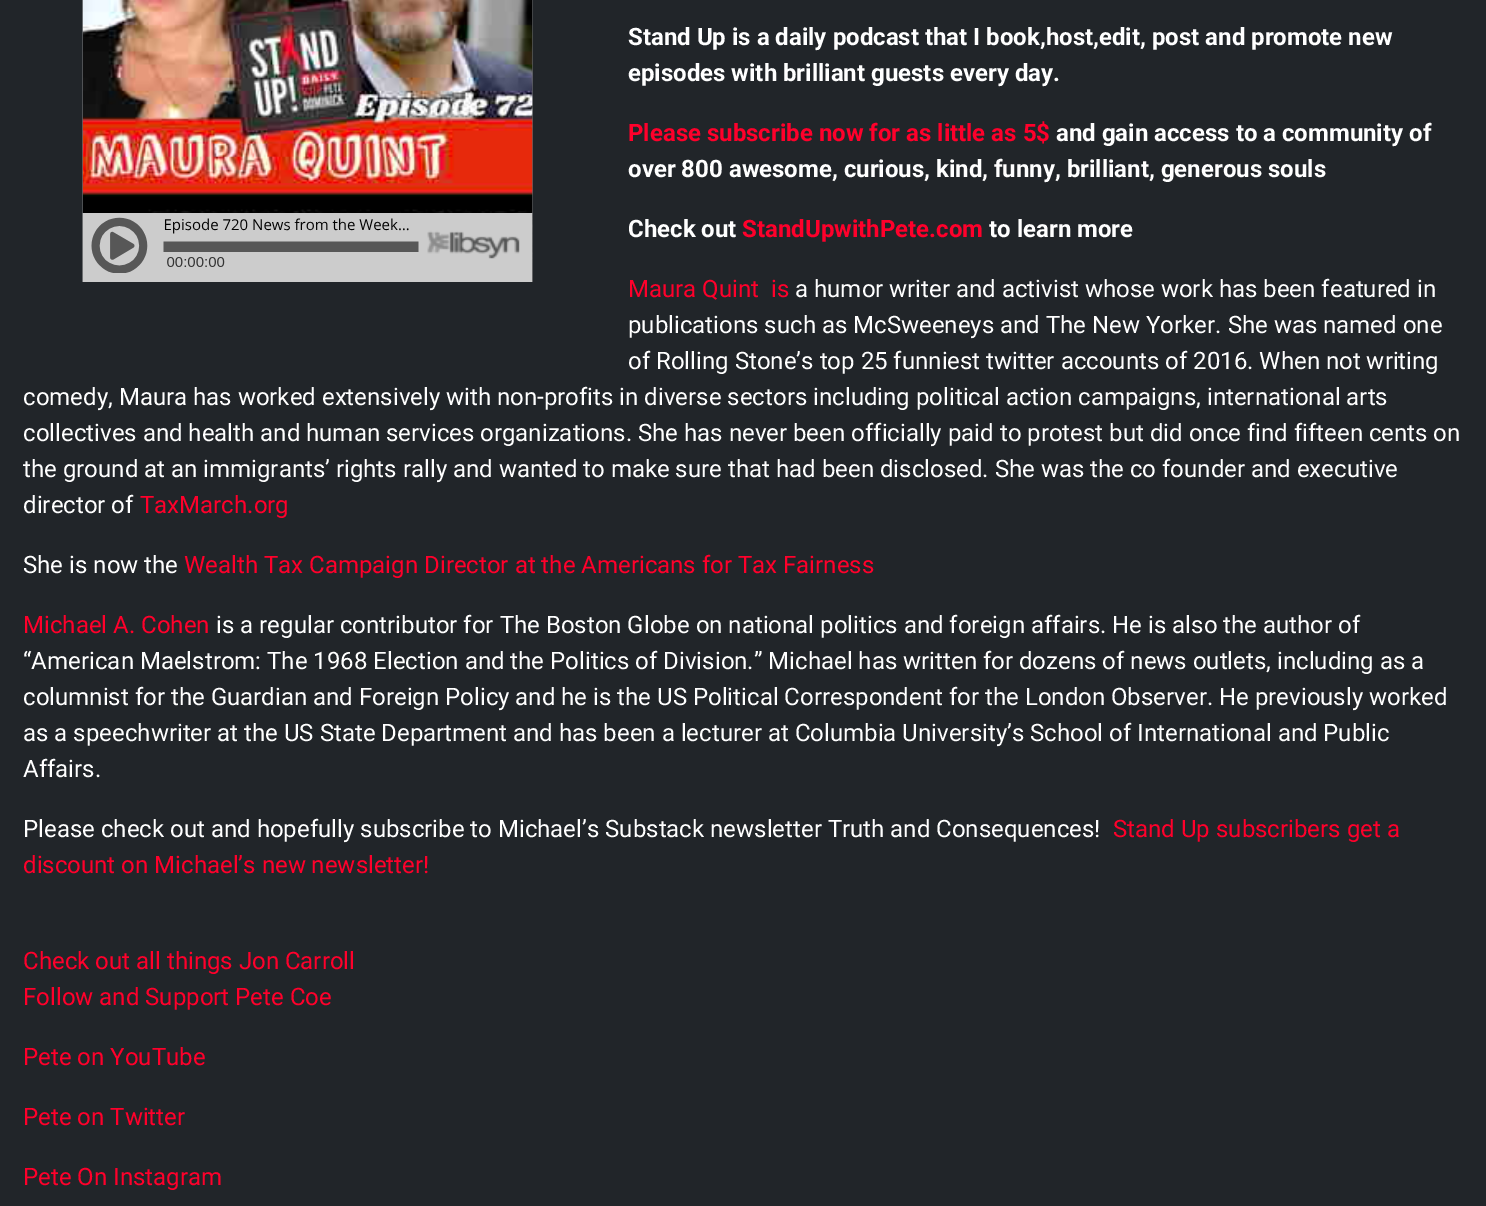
%!PS
<< /PageSize [1486 1206] >> setpagedevice
/rgb { dup -16 bitshift 255 div exch dup -8 bitshift 255 and 255 div exch 255 and 255 div setrgbcolor } def
/font { [ exch dup neg 0 0 3 -1 roll 0 0 ] selectfont } def
/text { moveto show } def
/picture { 5 dict begin { /h /w /y /x /name } { exch def } forall
  gsave x y translate w h scale
  w h 8 [w 0 0 h 0 0] name (r) file false 3 colorimage grestore end } def
0 1206 translate 1 -1 scale
4 setmiterlimit
/s1 { /Roboto-Bold 24 font 16#FFFFFF rgb } def
/s2 { /Roboto-Bold 24 font 16#FF002B rgb } def
/s3 { /Roboto-Regular 24 font 16#FF002B rgb } def
/s4 { /Roboto-Regular 24 font 16#FFFFFF rgb } def
16#212529 rgb
0 0 1486 1206 rectfill
(pic1.raw) 82 0 451 282 picture
s1
(Stand Up is a daily podcast that I book,host,edit, post and promote new) 628 45 text
(episodes with brilliant guests every day.) 628 81 text
s2
(Please subscribe now for as little as 5$) 628 141 text
s1
(and gain access to a community of) 1056 141 text
(over 800 awesome, curious, kind, funny, brilliant, generous souls) 628 177 text
(Check out) 628 237 text
s2
(StandUpwithPete.com) 742 237 text
s1
(to learn more) 989 237 text
s3
(Maura Quint  is) 628 297 text
s4
(a humor writer and activist whose work has been featured in) 795 297 text
(publications such as McSweeneys and The New Yorker. She was named one) 628 333 text
(of Rolling Stone’s top 25 funniest twitter accounts of 2016. When not writing) 628 369 text
(comedy, Maura has worked extensively with non-profits in diverse sectors including political action campaigns, international arts) 23 405 text
(collectives and health and human services organizations. She has never been officially paid to protest but did once find fifteen cents on) 23 441 text
(the ground at an immigrants’ rights rally and wanted to make sure that had been disclosed. She was the co founder and executive) 23 477 text
(director of) 23 513 text
s3
(TaxMarch.org) 140 513 text
s4
(She is now the) 23 573 text
s3
(Wealth Tax Campaign Director at the Americans for Tax Fairness) 184 573 text
(Michael A. Cohen) 23 633 text
s4
(is a regular contributor for The Boston Globe on national politics and foreign affairs. He is also the author of) 216 633 text
(“American Maelstrom: The 1968 Election and the Politics of Division.” Michael has written for dozens of news outlets, including as a) 23 669 text
(columnist for the Guardian and Foreign Policy and he is the US Political Correspondent for the London Observer. He previously worked) 23 705 text
(as a speechwriter at the US State Department and has been a lecturer at Columbia University’s School of International and Public) 23 741 text
(Affairs.) 23 777 text
(Please check out and hopefully subscribe to Michael’s Substack newsletter Truth and Consequences!) 23 837 text
s3
(Stand Up subscribers get a) 1113 837 text
(discount on Michael’s new newsletter!) 23 873 text
(Check out all things Jon Carroll) 23 969 text
(Follow and Support Pete Coe) 23 1005 text
(Pete on YouTube) 23 1065 text
(Pete on Twitter) 23 1125 text
(Pete On Instagram) 23 1185 text
showpage
